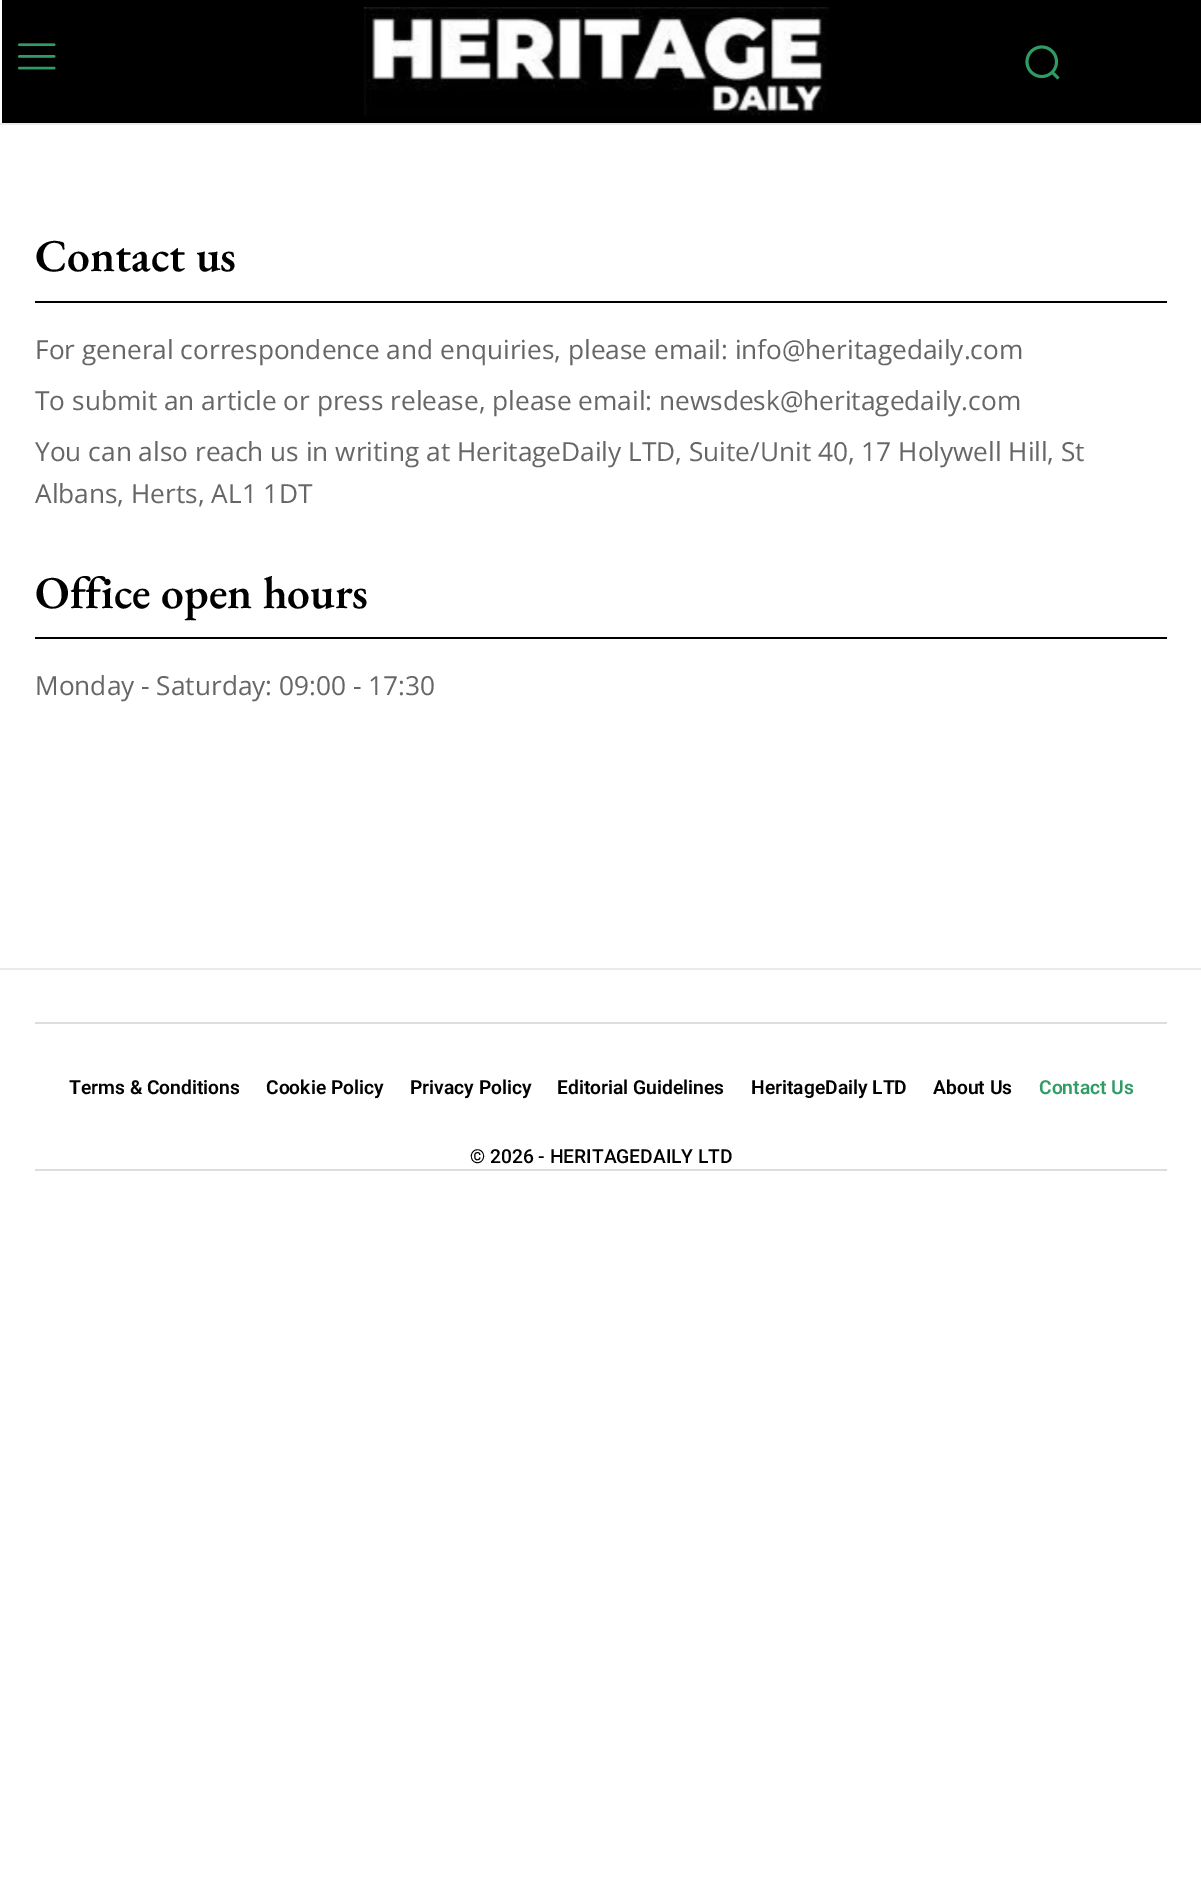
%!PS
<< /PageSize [1201 1877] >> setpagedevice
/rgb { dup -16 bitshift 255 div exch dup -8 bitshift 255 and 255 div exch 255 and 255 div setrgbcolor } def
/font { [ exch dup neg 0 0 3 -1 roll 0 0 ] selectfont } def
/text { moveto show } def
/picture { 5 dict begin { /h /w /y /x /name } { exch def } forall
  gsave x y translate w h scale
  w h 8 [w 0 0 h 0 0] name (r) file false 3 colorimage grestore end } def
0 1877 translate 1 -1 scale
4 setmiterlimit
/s1 { /EBGaramond-SemiBold 45.5 font 16#000000 rgb } def
/s2 { /OpenSans-Regular 26.25 font 16#666666 rgb } def
/s3 { /Roboto-SemiBold 19.25 font 16#000000 rgb } def
/s4 { /Roboto-SemiBold 19.25 font 16#309B65 rgb } def
/s5 { /Roboto-Medium 19.25 font 16#000000 rgb } def
16#FFFFFF rgb
0 0 1201 1877 rectfill
16#EAEAEA rgb
0 123 1201 2 rectfill
16#000000 rgb
2 0 1199 123 rectfill
(pic1.raw) 18 43 38 27 picture
(pic2.raw) 363 7 467 109 picture
(pic3.raw) 1025 45 35 35 picture
s1
(Contact us) 35 271 text
35 301 1132 2 rectfill
s2
(For general correspondence and enquiries, please email: info@heritagedaily.com) 35 359 text
(To submit an article or press release, please email: newsdesk@heritagedaily.com) 35 410 text
(You can also reach us in writing at HeritageDaily LTD, Suite/Unit 40, 17 Holywell Hill, St) 35 461 text
(Albans, Herts, AL1 1DT) 35 503 text
s1
(Office open hours) 35 608 text
35 637 1132 2 rectfill
s2
(Monday - Saturday: 09:00 - 17:30) 35 695 text
16#EAEAEA rgb
0 968 1201 2 rectfill
16#DDDDDD rgb
35 1022 1132 2 rectfill
s3
(Terms & Conditions) 69 1094 text
(Cookie Policy) 266 1094 text
(Privacy Policy) 410 1094 text
(Editorial Guidelines) 557 1094 text
(HeritageDaily LTD) 751 1094 text
(About Us) 933 1094 text
s4
(Contact Us) 1039 1094 text
s5
(© 2026 - HERITAGEDAILY LTD) 470 1163 text
16#DDDDDD rgb
35 1169 1132 2 rectfill
showpage
